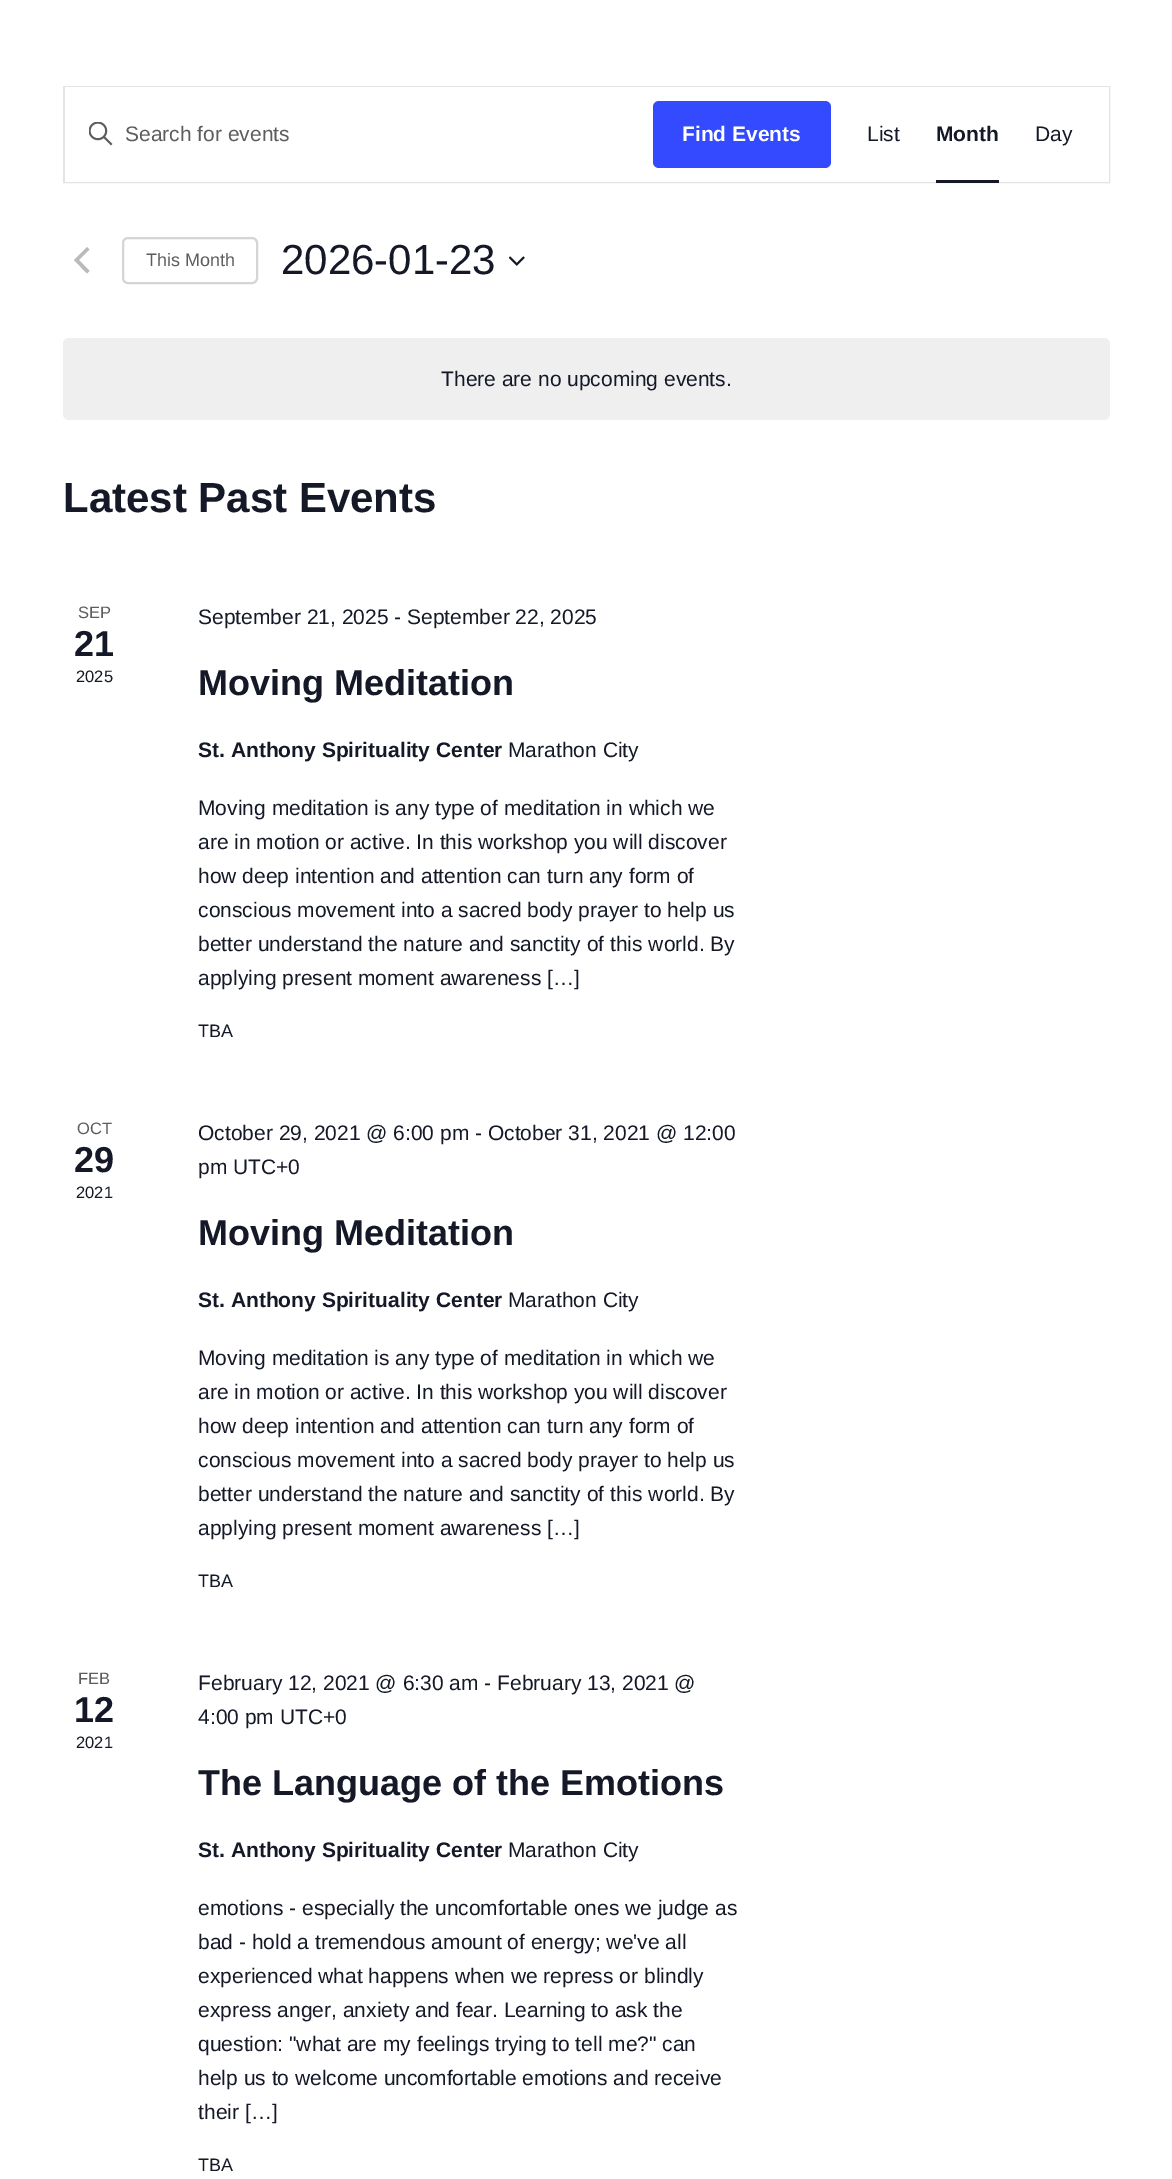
%!PS
<< /PageSize [1172 2179] >> setpagedevice
/rgb { dup -16 bitshift 255 div exch dup -8 bitshift 255 and 255 div exch 255 and 255 div setrgbcolor } def
/font { [ exch dup neg 0 0 3 -1 roll 0 0 ] selectfont } def
/text { moveto show } def
/roundrect { 5 dict begin { /r /h /w /y /x } { exch def } forall
  x r add y moveto x w add y 2 copy h add r arct x w add y h add x 1 index r arct
  x y h add x y r arct x y 2 copy exch w add exch r arct closepath end } def
/picture { 5 dict begin { /h /w /y /x /name } { exch def } forall
  gsave x y translate w h scale
  w h 8 [w 0 0 h 0 0] name (r) file false 3 colorimage grestore end } def
0 2179 translate 1 -1 scale
4 setmiterlimit
/s1 { /LiberationSans-Regular 21 font 16#5D5D5D rgb } def
/s2 { /LiberationSans-Bold 21 font 16#FFFFFF rgb } def
/s3 { /LiberationSans-Regular 21 font 16#141827 rgb } def
/s4 { /LiberationSans-Bold 21 font 16#141827 rgb } def
/s5 { /LiberationSans-Regular 18 font 16#5D5D5D rgb } def
/s6 { /LiberationSans-Regular 42 font 16#141827 rgb } def
/s7 { /LiberationSans-Bold 42 font 16#141827 rgb } def
/s8 { /LiberationSans-Regular 16.5 font 16#5D5D5D rgb } def
/s9 { /LiberationSans-Bold 36 font 16#141827 rgb } def
/s10 { /LiberationSans-Regular 16.5 font 16#141827 rgb } def
/s11 { /LiberationSans-Regular 18 font 16#141827 rgb } def
16#FFFFFF rgb
0 0 1172 2179 rectfill
16#E4E4E4 rgb
2 setlinewidth
64 87 1045 95 rectstroke
16#FFFFFF rgb
65 87 1044 95 rectfill
(pic1.raw) 89 122 24 24 picture
s1
(Search for events) 125 141 text
16#334AFF rgb
653 101 178 67 6 roundrect fill
s2
(Find Events) 682 141 text
s3
(List) 867 141 text
s4
(Month) 936 141 text
936 180 63 3 rectfill
s3
(Day) 1035 141 text
16#BABABA rgb
89.5 271 moveto 87 273.5 lineto 74 260 lineto 87 247 lineto 89.5 249.5 lineto 79 260 lineto closepath fill
16#D5D5D5 rgb
123 238 134 45 5 roundrect stroke
s5
(This Month) 146 266 text
s6
(2026-01-23) 281 274 text
(pic2.raw) 509 256 16 10 picture
16#EFEFF0 rgb
63 338 1047 82 6 roundrect fill
s3
(There are no upcoming events.) 441 386 text
s7
(Latest Past Events) 63 512 text
s8
(SEP) 78 618 text
s9
(21) 74 656 text
s10
(2025) 76 682 text
s3
(September 21, 2025 - September 22, 2025) 198 624 text
s9
(Moving Meditation) 198 695 text
s4
(St. Anthony Spirituality Center) 198 757 text
s3
(Marathon City) 508 757 text
(Moving meditation is any type of meditation in which we) 198 815 text
(are in motion or active. In this workshop you will discover) 198 849 text
(how deep intention and attention can turn any form of) 198 883 text
(conscious movement into a sacred body prayer to help us) 198 917 text
(better understand the nature and sanctity of this world. By) 198 951 text
(applying present moment awareness […]) 198 985 text
s11
(TBA) 198 1037 text
s8
(OCT) 77 1134 text
s9
(29) 74 1172 text
s10
(2021) 76 1198 text
s3
(October 29, 2021 @ 6:00 pm - October 31, 2021 @ 12:00) 198 1140 text
(pm UTC+0) 198 1174 text
s9
(Moving Meditation) 198 1245 text
s4
(St. Anthony Spirituality Center) 198 1307 text
s3
(Marathon City) 508 1307 text
(Moving meditation is any type of meditation in which we) 198 1365 text
(are in motion or active. In this workshop you will discover) 198 1399 text
(how deep intention and attention can turn any form of) 198 1433 text
(conscious movement into a sacred body prayer to help us) 198 1467 text
(better understand the nature and sanctity of this world. By) 198 1501 text
(applying present moment awareness […]) 198 1535 text
s11
(TBA) 198 1587 text
s8
(FEB) 78 1684 text
s9
(12) 74 1722 text
s10
(2021) 76 1748 text
s3
(February 12, 2021 @ 6:30 am - February 13, 2021 @) 198 1690 text
(4:00 pm UTC+0) 198 1724 text
s9
(The Language of the Emotions) 198 1795 text
s4
(St. Anthony Spirituality Center) 198 1857 text
s3
(Marathon City) 508 1857 text
(emotions - especially the uncomfortable ones we judge as) 198 1915 text
(bad - hold a tremendous amount of energy; we've all) 198 1949 text
(experienced what happens when we repress or blindly) 198 1983 text
(express anger, anxiety and fear. Learning to ask the) 198 2017 text
(question: "what are my feelings trying to tell me?" can) 198 2051 text
(help us to welcome uncomfortable emotions and receive) 198 2085 text
(their […]) 198 2119 text
s11
(TBA) 198 2171 text
showpage
